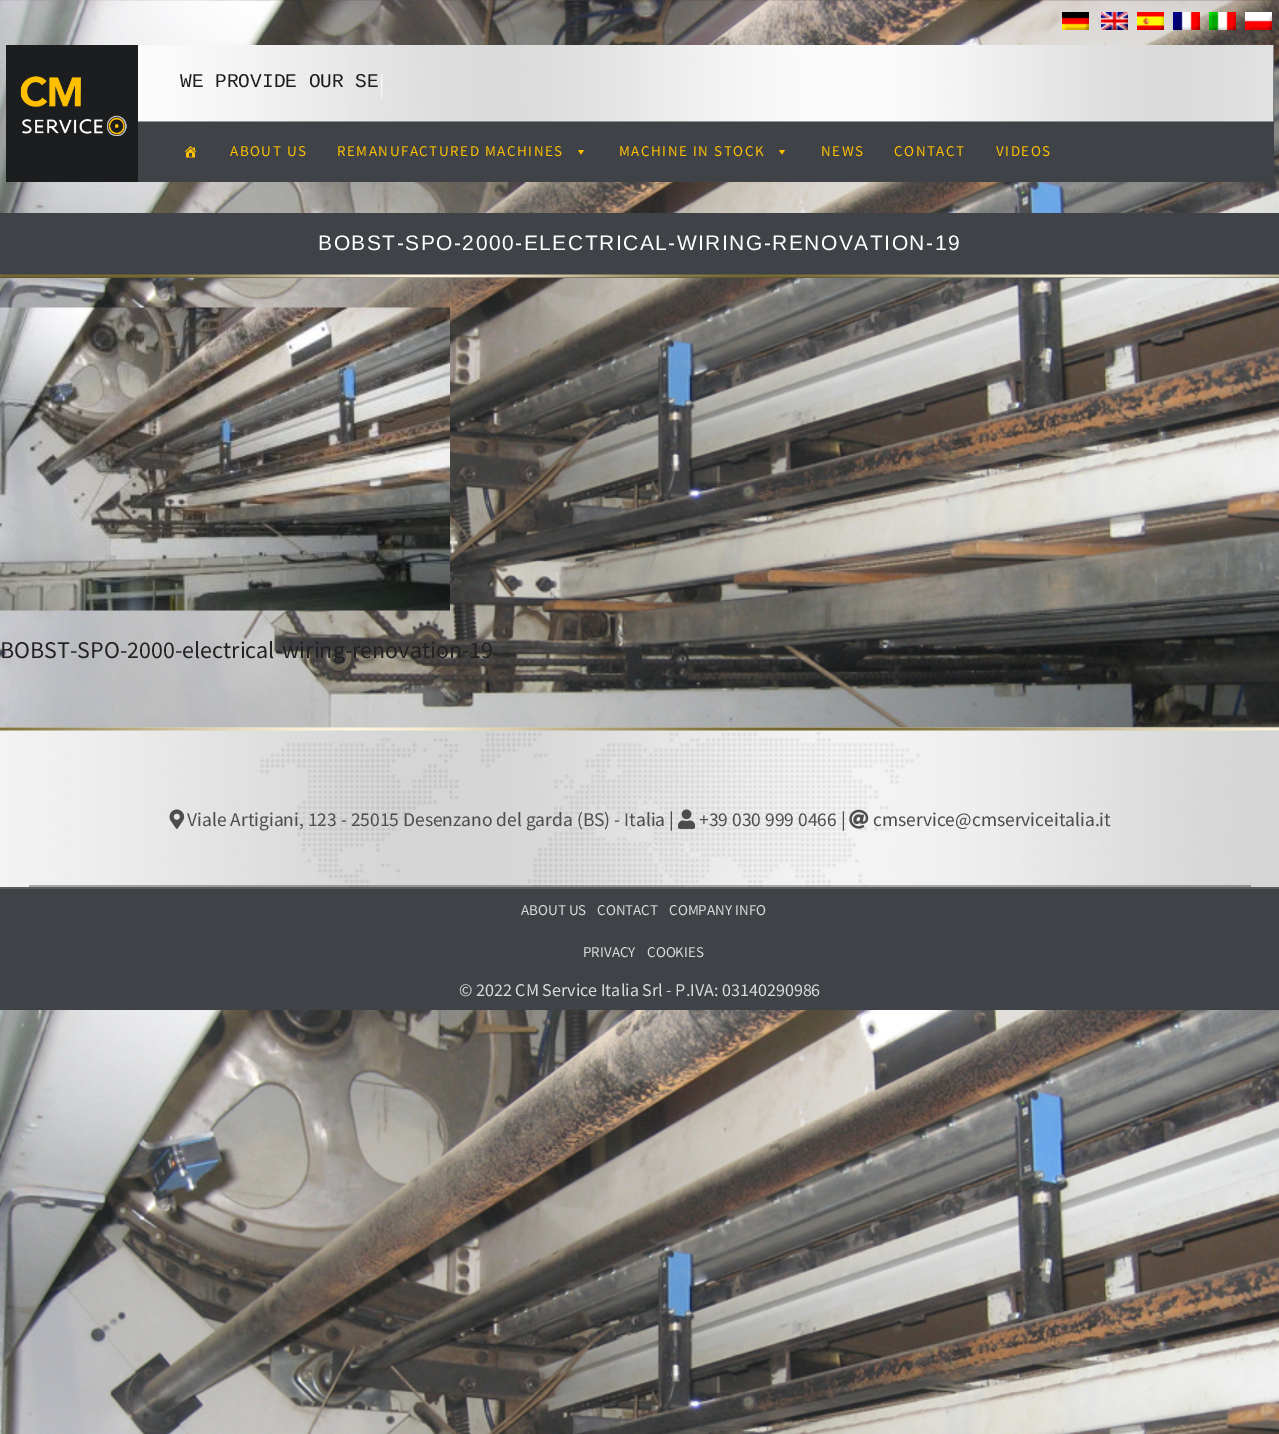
%!PS
<< /PageSize [1279 1434] /PageUsesTransparency true >> setpagedevice
/rgb { dup -16 bitshift 255 div exch dup -8 bitshift 255 and 255 div exch 255 and 255 div setrgbcolor } def
/font { [ exch dup neg 0 0 3 -1 roll 0 0 ] selectfont } def
/text { moveto show } def
/alpha { dup .setfillconstantalpha .setstrokeconstantalpha } def
/picture { 5 dict begin { /h /w /y /x /name } { exch def } forall
  gsave x y translate w h scale
  w h 8 [w 0 0 h 0 0] name (r) file false 3 colorimage grestore end } def
0 .pushpdf14devicefilter
0 1434 translate 1 -1 scale
4 setmiterlimit
/s1 { /LiberationMono-Regular 19.5 font 16#1B1D1F rgb } def
/s2 { /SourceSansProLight-Light 24 font 16#FFFFFF rgb } def
/s3 { /SourceSansPro-Regular 24 font 16#222222 rgb } def
/s4 { /SourceSansPro-Regular 19.5 font 16#4E4D4D rgb } def
/s5 { /SourceSansPro-Regular 15 font 16#DADADA rgb } def
/s6 { /SourceSansPro-Regular 18 font 16#DADADA rgb } def
16#FFFFFF rgb
0 0 1279 1434 rectfill
(pic1.raw) 0 0 1279 1434 picture
16#1B1D1F rgb
6 45 1268 137 rectfill
(pic2.raw) 20 76 107 60 picture
(pic3.raw) 138 45 1136 77 picture
(pic4.raw) 1062 12 27 18 picture
(pic5.raw) 1101 12 27 18 picture
(pic6.raw) 1137 12 27 18 picture
(pic7.raw) 1173 12 27 18 picture
(pic8.raw) 1209 12 27 18 picture
(pic9.raw) 1245 12 27 18 picture
0.1 alpha
16#FFFFFF rgb
138 120 1136 2 rectfill
1 alpha
s1
(WE PROVIDE OUR SE) 180 87 text
s2
(|) 379 92 text
16#3F4348 rgb
138 122 1136 60 rectfill
(pic10.raw) 184 146 13 12 picture
/SourceSansPro-Regular 15 font
16#FEBF01 rgb
230 156 moveto 1.5 0 (ABOUT US) ashow
337 156 moveto 1.5 0 (REMANUFACTURED MACHINES) ashow
584 150 moveto 581 154.5 lineto 578 150 lineto closepath fill
619 156 moveto 1.5 0 (MACHINE IN STOCK) ashow
785 150 moveto 782 154.5 lineto 779 150 lineto closepath fill
821 156 moveto 1.5 0 (NEWS) ashow
894 156 moveto 1.5 0 (CONTACT) ashow
996 156 moveto 1.5 0 (VIDEOS) ashow
16#3F4348 rgb
0 213 1279 65 rectfill
/LiberationSans-Regular 21 font
16#FFFFFF rgb
318 250 moveto 1.5 0 (BOBST-SPO-2000-ELECTRICAL-WIRING-RENOVATION-19) ashow
(pic11.raw) 0 274 1279 4 picture
(pic12.raw) 0 307 450 304 picture
s3
(BOBST-SPO-2000-electrical-wiring-renovation-19) 0 658 text
(pic13.raw) 0 727 1279 160 picture
(pic14.raw) 0 727 1279 4 picture
0.3 alpha
16#000000 rgb
29 885 1222 2 rectfill
1 alpha
(pic15.raw) 169 809 16 20 picture
s4
(Viale Artigiani, 123 - 25015 Desenzano del garda \(BS\) - Italia |) 187 826 text
(pic16.raw) 678 809 18 20 picture
(+39 030 999 0466 |) 699 826 text
(pic17.raw) 849 809 20 20 picture
(cmservice@cmserviceitalia.it) 873 826 text
16#3F4348 rgb
0 889 1279 121 rectfill
16#5A5A5A rgb
0 887 1279 2 rectfill
s5
(ABOUT US) 521 915 text
(CONTACT) 597 915 text
(COMPANY INFO) 669 915 text
(PRIVACY) 583 957 text
(COOKIES) 647 957 text
s6
(© 2022 CM Service Italia Srl - P.IVA: 03140290986) 459 996 text
.poppdf14devicefilter showpage
